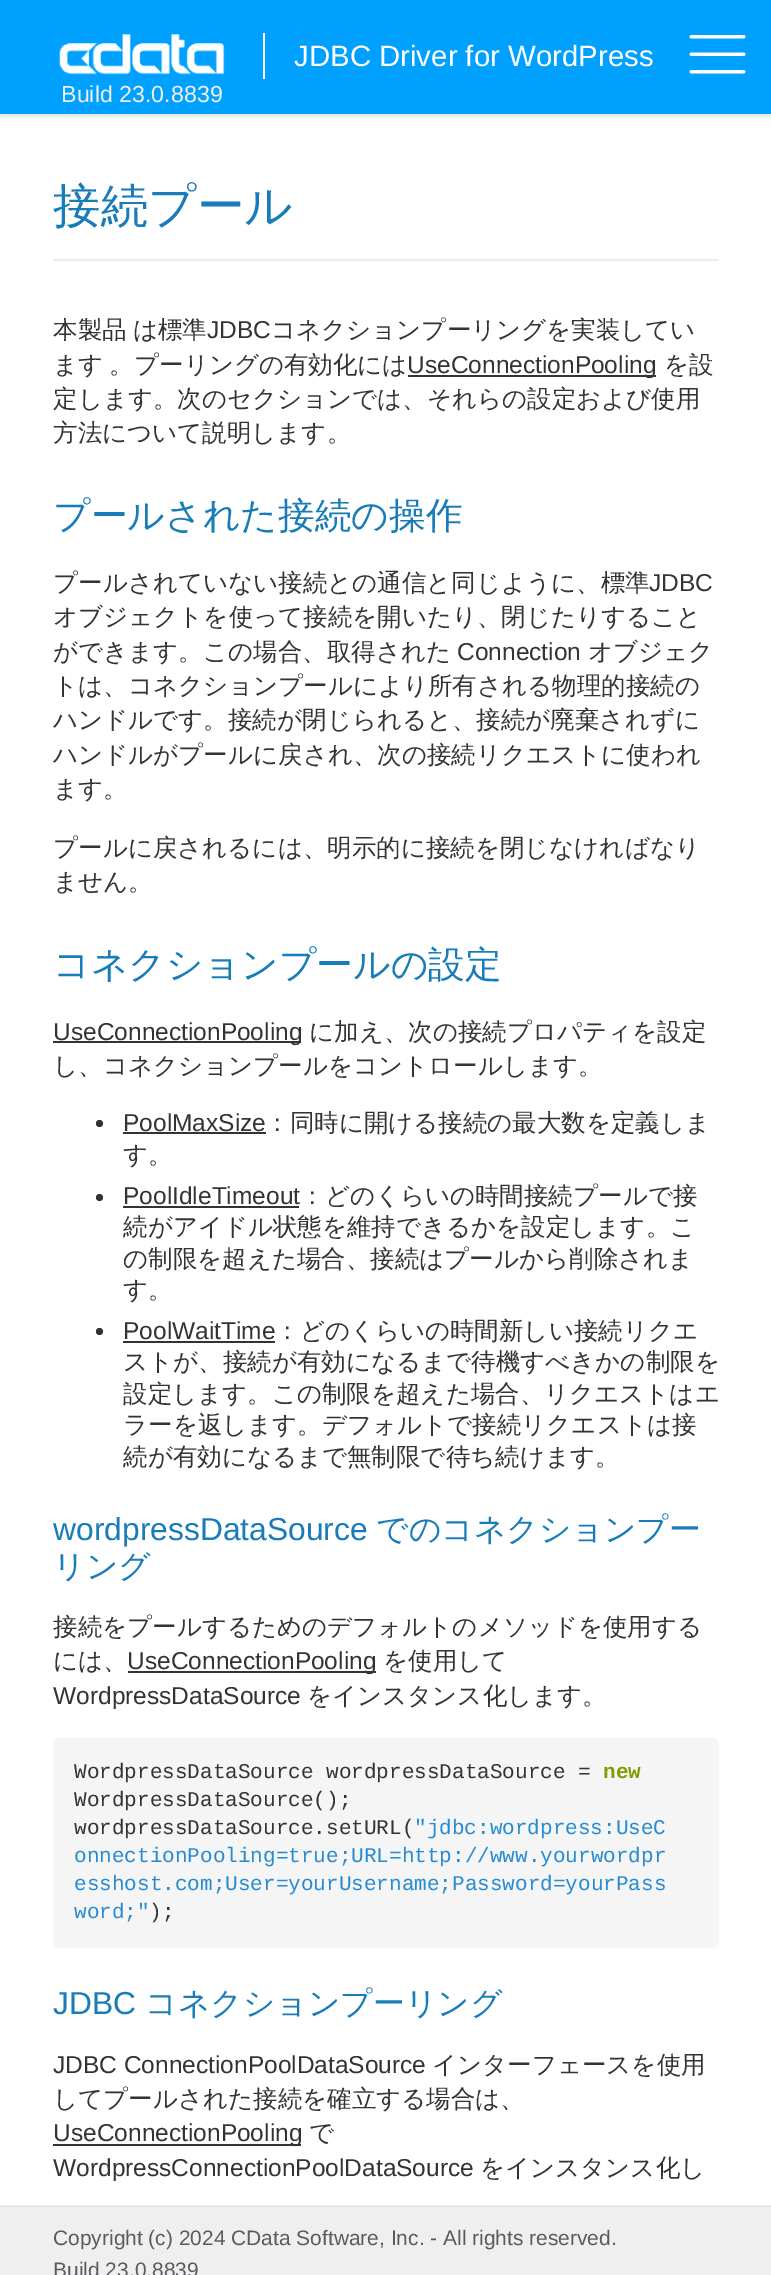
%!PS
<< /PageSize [771 2275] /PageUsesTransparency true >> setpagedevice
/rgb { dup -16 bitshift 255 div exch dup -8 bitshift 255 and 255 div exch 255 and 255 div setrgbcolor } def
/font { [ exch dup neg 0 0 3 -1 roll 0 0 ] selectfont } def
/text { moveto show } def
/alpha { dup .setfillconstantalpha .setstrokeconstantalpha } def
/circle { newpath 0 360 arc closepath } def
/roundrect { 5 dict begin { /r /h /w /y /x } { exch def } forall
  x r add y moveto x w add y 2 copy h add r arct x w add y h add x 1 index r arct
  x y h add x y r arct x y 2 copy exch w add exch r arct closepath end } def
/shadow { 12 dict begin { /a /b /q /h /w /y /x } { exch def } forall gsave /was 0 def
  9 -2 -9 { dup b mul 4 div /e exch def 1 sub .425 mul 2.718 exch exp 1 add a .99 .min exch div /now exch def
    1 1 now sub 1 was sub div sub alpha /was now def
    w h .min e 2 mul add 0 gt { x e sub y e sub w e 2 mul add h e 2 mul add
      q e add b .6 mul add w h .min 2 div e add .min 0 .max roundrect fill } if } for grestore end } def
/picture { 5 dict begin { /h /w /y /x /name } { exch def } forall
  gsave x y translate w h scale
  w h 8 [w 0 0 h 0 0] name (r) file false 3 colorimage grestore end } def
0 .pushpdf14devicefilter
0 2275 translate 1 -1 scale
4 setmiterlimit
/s1 { /LiberationSans-Regular 29.4 font 16#FFFFFF rgb } def
/s2 { /LiberationSans-Regular 23.25 font 16#EFEFEF rgb } def
/s3 { /WenQuanYiZenHei-Medium 47.5 font 16#177CB8 rgb } def
/s4 { /LiberationSans-Regular 24.5 font 16#333333 rgb } def
/s5 { /WenQuanYiZenHei-Medium 24.5 font 16#333333 rgb } def
/s6 { /WenQuanYiZenHei-Medium 36.75 font 16#177CB8 rgb } def
/s7 { /LiberationSans-Regular 31.8 font 16#177CB8 rgb } def
/s8 { /WenQuanYiZenHei-Medium 31.8 font 16#177CB8 rgb } def
/s9 { /LiberationMono-Regular 21 font 16#333333 rgb } def
/s10 { /LiberationMono-Bold 21 font 16#859900 rgb } def
/s11 { /LiberationMono-Regular 21 font 16#268BD2 rgb } def
/s12 { /LiberationSans-Regular 20.95 font 16#5C5962 rgb } def
16#FFFFFF rgb
0 0 771 2275 rectfill
16#000000 rgb
0 4 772 113 0 2 0.1 shadow
16#00A0FF rgb
0 0 771 114 rectfill
(pic1.raw) 59 34 166 41 picture
(pic2.raw) 689 35 57 39 picture
16#FFFFFF rgb
263 33 2 46 rectfill
s1
(JDBC Driver for WordPress) 294 66 text
s2
(Build 23.0.8839) 61 102 text
16#EEEBEE rgb
53 259 666 2 rectfill
s3
(接続プール) 53 222 text
/WenQuanYiZenHei-Medium 24.5 font
16#333333 rgb
53 338 moveto -1 0 32 (本製品 は標準) widthshow
s4
(JDBC) 207 338 text
s5
(コネクションプーリングを実装してい) 271 338 text
53 373 moveto -1 0 32 (ます 。プーリングの有効化には) widthshow
408 375 248 2 rectfill
s4
(UseConnectionPooling) 407 373 text
s5
(を設) 664 373 text
(定します。次のセクションでは、それらの設定および使用) 53 407 text
(方法について説明します。) 53 441 text
s6
(プールされた接続の操作) 53 528 text
s5
(プールされていない接続との通信と同じように、標準) 53 591 text
s4
(JDBC) 649 591 text
s5
(オブジェクトを使って接続を開いたり、閉じたりすること) 53 625 text
(ができます。この場合、取得された) 53 660 text
s4
(Connection) 457 660 text
s5
(オブジェク) 588 660 text
(トは、コネクションプールにより所有される物理的接続の) 53 694 text
(ハンドルです。接続が閉じられると、接続が廃棄されずに) 53 728 text
(ハンドルがプールに戻され、次の接続リクエストに使われ) 53 763 text
(ます。) 53 797 text
(プールに戻されるには、明示的に接続を閉じなければなり) 53 856 text
(ません。) 53 890 text
s6
(コネクションプールの設定) 53 977 text
16#333333 rgb
53 1041 248 2 rectfill
s4
(UseConnectionPooling) 53 1040 text
s5
(に加え、次の接続プロパティを設定) 309 1040 text
(し、コネクションプールをコントロールします。) 53 1074 text
99.5 1123.5 3.5 circle fill
s4
(PoolMaxSize) 123 1131 text
123 1132 143 2 rectfill
s5
(：同時に開ける接続の最大数を定義しま) 265 1131 text
(す。) 123 1163 text
99.5 1197.5 3.5 circle fill
s4
(PoolIdleTimeout) 123 1204 text
123 1206 176 2 rectfill
s5
(：どのくらいの時間接続プールで接) 300 1204 text
(続がアイドル状態を維持できるかを設定します。こ) 123 1235 text
(の制限を超えた場合、接続はプールから削除されま) 123 1267 text
(す。) 123 1298 text
99.5 1331.5 3.5 circle fill
s4
(PoolWaitTime) 123 1339 text
123 1341 152 2 rectfill
s5
(：どのくらいの時間新しい接続リクエ) 275 1339 text
(ストが、接続が有効になるまで待機すべきかの制限を) 123 1370 text
(設定します。この制限を超えた場合、リクエストはエ) 123 1402 text
(ラーを返します。デフォルトで接続リクエストは接) 123 1433 text
(続が有効になるまで無制限で待ち続けます。) 123 1465 text
s7
(wordpressDataSource) 53 1540 text
s8
(でのコネクションプー) 376 1540 text
(リング) 53 1577 text
s5
(接続をプールするためのデフォルトのメソッドを使用する) 53 1635 text
(には、) 53 1669 text
128 1671 248 2 rectfill
s4
(UseConnectionPooling) 127 1669 text
s5
(を使用して) 383 1669 text
s4
(WordpressDataSource) 53 1704 text
s5
(をインスタンス化します。) 307 1704 text
16#F5F5F5 rgb
53 1738 666 210 7 roundrect fill
s9
(WordpressDataSource wordpressDataSource =) 74 1778 text
s10
(new) 603 1778 text
s9
(WordpressDataSource\(\);) 74 1806 text
(wordpressDataSource.setURL\() 74 1834 text
s11
("jdbc:wordpress:UseC) 414 1834 text
(onnectionPooling=true;URL=http://www.yourwordpr) 74 1862 text
(esshost.com;User=yourUsername;Password=yourPass) 74 1890 text
(word;") 74 1918 text
s9
(\);) 149 1918 text
s7
(JDBC) 53 2014 text
s8
(コネクションプーリング) 145 2014 text
s4
(JDBC ConnectionPoolDataSource) 53 2073 text
s5
(インターフェースを使用) 432 2073 text
(してプールされた接続を確立する場合は、) 53 2107 text
53 2144 248 2 rectfill
s4
(UseConnectionPooling) 53 2141 text
s5
(で) 309 2141 text
s4
(WordpressConnectionPoolDataSource) 53 2176 text
s5
(をインスタンス化し) 480 2176 text
16#EFEFEF rgb
0 2207 771 68 rectfill
16#E8E8E8 rgb
0 2205 771 2 rectfill
s12
(Copyright \(c\) 2024 CData Software, Inc. - All rights reserved.) 53 2245 text
(Build 23.0.8839) 53 2277 text
.poppdf14devicefilter showpage
